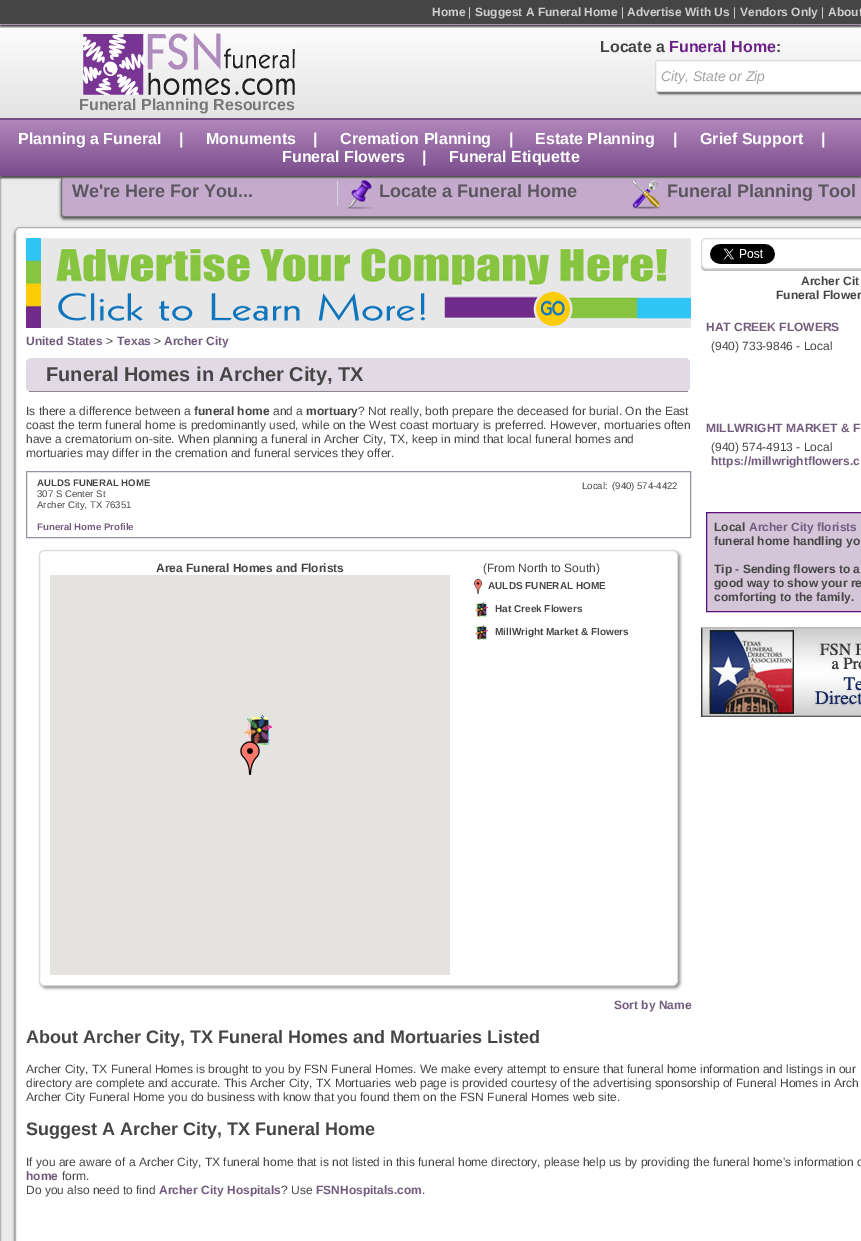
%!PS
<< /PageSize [861 1241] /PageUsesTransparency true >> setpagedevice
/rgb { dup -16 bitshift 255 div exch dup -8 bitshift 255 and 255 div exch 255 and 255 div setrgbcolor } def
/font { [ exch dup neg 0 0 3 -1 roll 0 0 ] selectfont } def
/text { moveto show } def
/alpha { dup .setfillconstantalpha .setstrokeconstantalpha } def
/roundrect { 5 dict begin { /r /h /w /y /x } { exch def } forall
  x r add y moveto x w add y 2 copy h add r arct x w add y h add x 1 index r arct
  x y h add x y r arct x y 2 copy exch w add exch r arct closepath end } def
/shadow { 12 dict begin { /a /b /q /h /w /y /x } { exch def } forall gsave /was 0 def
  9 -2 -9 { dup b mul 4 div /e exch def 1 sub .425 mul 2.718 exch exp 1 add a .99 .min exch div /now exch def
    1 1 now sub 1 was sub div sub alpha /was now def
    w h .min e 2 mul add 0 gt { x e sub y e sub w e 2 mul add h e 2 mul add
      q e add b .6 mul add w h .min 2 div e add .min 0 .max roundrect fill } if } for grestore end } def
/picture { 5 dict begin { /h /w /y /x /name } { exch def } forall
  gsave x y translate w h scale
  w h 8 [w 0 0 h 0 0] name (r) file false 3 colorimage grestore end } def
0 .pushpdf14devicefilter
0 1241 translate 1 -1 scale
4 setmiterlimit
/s1 { /LiberationSans-Bold 12 font 16#CECECE rgb } def
/s2 { /LiberationSans-Regular 12 font 16#CECECE rgb } def
/s3 { /LiberationSans-Bold 16 font 16#454545 rgb } def
/s4 { /LiberationSans-Bold 16 font 16#6E2188 rgb } def
/s5 { /LiberationSans-Italic 14 font 16#A2A2A2 rgb } def
/s6 { /LiberationSans-Bold 16 font 16#777777 rgb } def
/s7 { /LiberationSans-Bold 16 font 16#FFFFFF rgb } def
/s8 { /LiberationSans-Bold 18 font 16#5B565D rgb } def
/s9 { /LiberationSans-Bold 12 font 16#725B7C rgb } def
/s10 { /LiberationSans-Regular 12 font 16#454545 rgb } def
/s11 { /LiberationSans-Bold 20 font 16#454545 rgb } def
/s12 { /LiberationSans-Bold 12 font 16#454545 rgb } def
/s13 { /LiberationSans-Bold 9.6 font 16#454545 rgb } def
/s14 { /LiberationSans-Regular 9.6 font 16#454545 rgb } def
/s15 { /LiberationSans-Bold 9.6 font 16#725B7C rgb } def
/s16 { /LiberationSans-Bold 10 font 16#454545 rgb } def
/s17 { /LiberationSans-Bold 18 font 16#454545 rgb } def
16#FFFFFF rgb
0 0 861 1241 rectfill
16#454545 rgb
0 2 861 25 0 1 1 shadow
0 0 861 24 rectfill
16#AB92B4 rgb
0 24 861 1 rectfill
s1
(Home) 432 16 text
s2
(|) 468 16 text
s1
(Suggest A Funeral Home) 475 16 text
s2
(|) 621 16 text
s1
(Advertise With Us) 627 16 text
s2
(|) 733 16 text
s1
(Vendors Only) 740 16 text
s2
(|) 821 16 text
s1
(About) 828 16 text
gsave 0 28 moveto 861 28 lineto 861 118 lineto 0 118 lineto closepath clip newpath
<< /ShadingType 2 /ColorSpace /DeviceRGB /Coords [431 28 431 118] /Extend [true true] /Function << /FunctionType 2 /Domain [0 1] /C0 [0.988 0.988 0.988] /C1 [0.89 0.89 0.89] /N 1 >> >> shfill grestore
s3
(Locate a) 600 52 text
s4
(Funeral Home) 669 52 text
s3
(:) 776 52 text
657 62 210 32 3 1 1 shadow
16#FFFFFF rgb
655.5 60.5 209 31 2.5 roundrect gsave fill grestore
16#DBDBDB rgb
stroke
s5
(City, State or Zip) 661 81 text
(pic1.raw) 83 33 212 63 picture
s6
(Funeral Planning Resources) 79 110 text
16#454545 rgb
0 179 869 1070 3 1.5 1 shadow
16#EBEBEB rgb
0.5 177.5 moveto 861.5 177.5 lineto 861.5 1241.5 lineto 0.5 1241.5 lineto closepath gsave fill grestore
16#B3B3B3 rgb
stroke
16#454545 rgb
0 120 861 58 0 1 1 shadow
gsave 0 120 moveto 861 120 lineto 861 176 lineto 0 176 lineto closepath clip newpath
<< /ShadingType 2 /ColorSpace /DeviceRGB /Coords [431 120 431 176] /Extend [true true] /Function << /FunctionType 2 /Domain [0 1] /C0 [0.694 0.529 0.737] /C1 [0.471 0.298 0.541] /N 1 >> >> shfill grestore
16#784C8A rgb
0 118 861 2 rectfill
s7
(Planning a Funeral) 18 144 text
(|) 179 144 text
(Monuments) 206 144 text
(|) 313 144 text
(Cremation Planning) 340 144 text
(|) 509 144 text
(Estate Planning) 535 144 text
(|) 673 144 text
(Grief Support) 700 144 text
(|) 821 144 text
(Funeral Flowers) 282 162 text
(|) 422 162 text
(Funeral Etiquette) 449 162 text
16#454545 rgb
61 179 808 40 3 1.5 1 shadow
16#C4AACC rgb
61.5 177.5 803 39 2.5 roundrect gsave fill grestore
16#767676 rgb
stroke
16#DCD4DF rgb
337 181 1 25 rectfill
s8
(We're Here For You...) 72 197 text
(pic2.raw) 346 180 28 29 picture
(Locate a Funeral Home) 379 197 text
(pic3.raw) 632 180 29 29 picture
(Funeral Planning Tool) 667 197 text
16#454545 rgb
15 229 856 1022 5 1.5 1 shadow
16#FFFFFF rgb
15.5 227.5 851 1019 4.5 roundrect gsave fill grestore
16#B3B3B3 rgb
stroke
(pic4.raw) 26 238 665 90 picture
s9
(United States) 26 345 text
s10
(>) 106 345 text
s9
(Texas) 117 345 text
s10
(>) 154 345 text
s9
(Archer City) 164 345 text
16#E1DAE4 rgb
26 358 664 34 5 roundrect fill
16#888888 rgb
29 391 659 1 rectfill
s11
(Funeral Homes in Archer City, TX) 46 381 text
s10
(Is there a difference between a) 26 415 text
s12
(funeral home) 194 415 text
s10
(and a) 273 415 text
s12
(mortuary) 306 415 text
s10
(? Not really, both prepare the deceased for burial. On the East) 358 415 text
(coast the term funeral home is predominantly used, while on the West coast mortuary is preferred. However, mortuaries often) 26 429 text
(have a crematorium on-site. When planning a funeral in Archer City, TX, keep in mind that local funeral homes and) 26 443 text
(mortuaries may differ in the cremation and funeral services they offer.) 26 457 text
16#9393A5 rgb
26.5 471.5 664 66 rectstroke
s13
(AULDS FUNERAL HOME) 37 486 text
s14
(307 S Center St) 37 497 text
(Archer City, TX 76351) 37 508 text
(Local:) 582 489 text
(\(940\) 574-4422) 612 489 text
s15
(Funeral Home Profile) 37 530 text
gsave
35 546 moveto 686 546 lineto 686 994 lineto 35 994 lineto closepath 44 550 moveto 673 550 lineto 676 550 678 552 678 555 curveto 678 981 lineto 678 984 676 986 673 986 curveto 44 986 lineto 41 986 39 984 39 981 curveto 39 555 lineto 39 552 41 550 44 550 curveto closepath eoclip newpath
16#888888 rgb
41 552 639 436 5 1.5 1 shadow
grestore
16#DADADA rgb
39.5 550.5 638 435 4.5 roundrect stroke
s12
(Area Funeral Homes and Florists) 156 572 text
s10
(\(From North to South\)) 483 572 text
16#E5E3DF rgb
50 575 400 400 rectfill
(pic5.raw) 244 715 27 27 picture
(pic6.raw) 245 716 27 29 picture
(pic7.raw) 240 741 20 34 picture
(pic8.raw) 474 579 8 15 picture
s16
(AULDS FUNERAL HOME) 488 589 text
(pic9.raw) 474 602 14 15 picture
(Hat Creek Flowers) 495 612 text
(pic9.raw) 474 625 14 15 picture
(MillWright Market & Flowers) 495 635 text
s9
(Sort by Name) 614 1009 text
16#C0C0C0 rgb
701 264 moveto 701 266 lineto 701 269 703 271 706 271 curveto 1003 271 lineto 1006 271 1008 269 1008 266 curveto 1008 264 lineto 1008 267 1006 269 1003 269 curveto 706 269 lineto 703 269 701 267 701 264 curveto closepath fill
16#DADADA rgb
701.5 238.5 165 30 4.5 roundrect stroke
(pic10.raw) 710 244 65 20 picture
s12
(Archer Cit) 801 285 text
(Funeral Flower) 776 299 text
s9
(HAT CREEK FLOWERS) 706 331 text
s10
(\(940\) 733-9846 - Local) 711 350 text
s9
(MILLWRIGHT MARKET & F) 706 432 text
s10
(\(940\) 574-4913 - Local) 711 451 text
s9
(https://millwrightflowers.c) 711 465 text
16#D5C5D9 rgb
706.5 512.5 moveto 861.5 512.5 lineto 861.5 611.5 lineto 706.5 611.5 lineto closepath gsave fill grestore
16#5D0C7B rgb
stroke
s12
(Local) 714 531 text
s9
(Archer City florists) 749 531 text
s12
(funeral home handling yo) 714 545 text
(Tip - Sending flowers to a) 714 573 text
(good way to show your re) 714 587 text
(comforting to the family.) 714 601 text
(pic11.raw) 701 627 160 90 picture
s17
(About Archer City, TX Funeral Homes and Mortuaries Listed) 26 1043 text
s10
(Archer City, TX Funeral Homes is brought to you by FSN Funeral Homes. We make every attempt to ensure that funeral home information and listings in our) 26 1073 text
(directory are complete and accurate. This Archer City, TX Mortuaries web page is provided courtesy of the advertising sponsorship of Funeral Homes in Arch) 26 1087 text
(Archer City Funeral Home you do business with know that you found them on the FSN Funeral Homes web site.) 26 1101 text
s17
(Suggest A Archer City, TX Funeral Home) 26 1135 text
s10
(If you are aware of a Archer City, TX funeral home that is not listed in this funeral home directory, please help us by providing the funeral home's information o) 26 1166 text
s9
(home) 26 1180 text
s10
(form.) 62 1180 text
(Do you also need to find) 26 1194 text
s9
(Archer City Hospitals) 159 1194 text
s10
(? Use) 281 1194 text
s9
(FSNHospitals.com) 316 1194 text
s10
(.) 422 1194 text
.poppdf14devicefilter showpage
